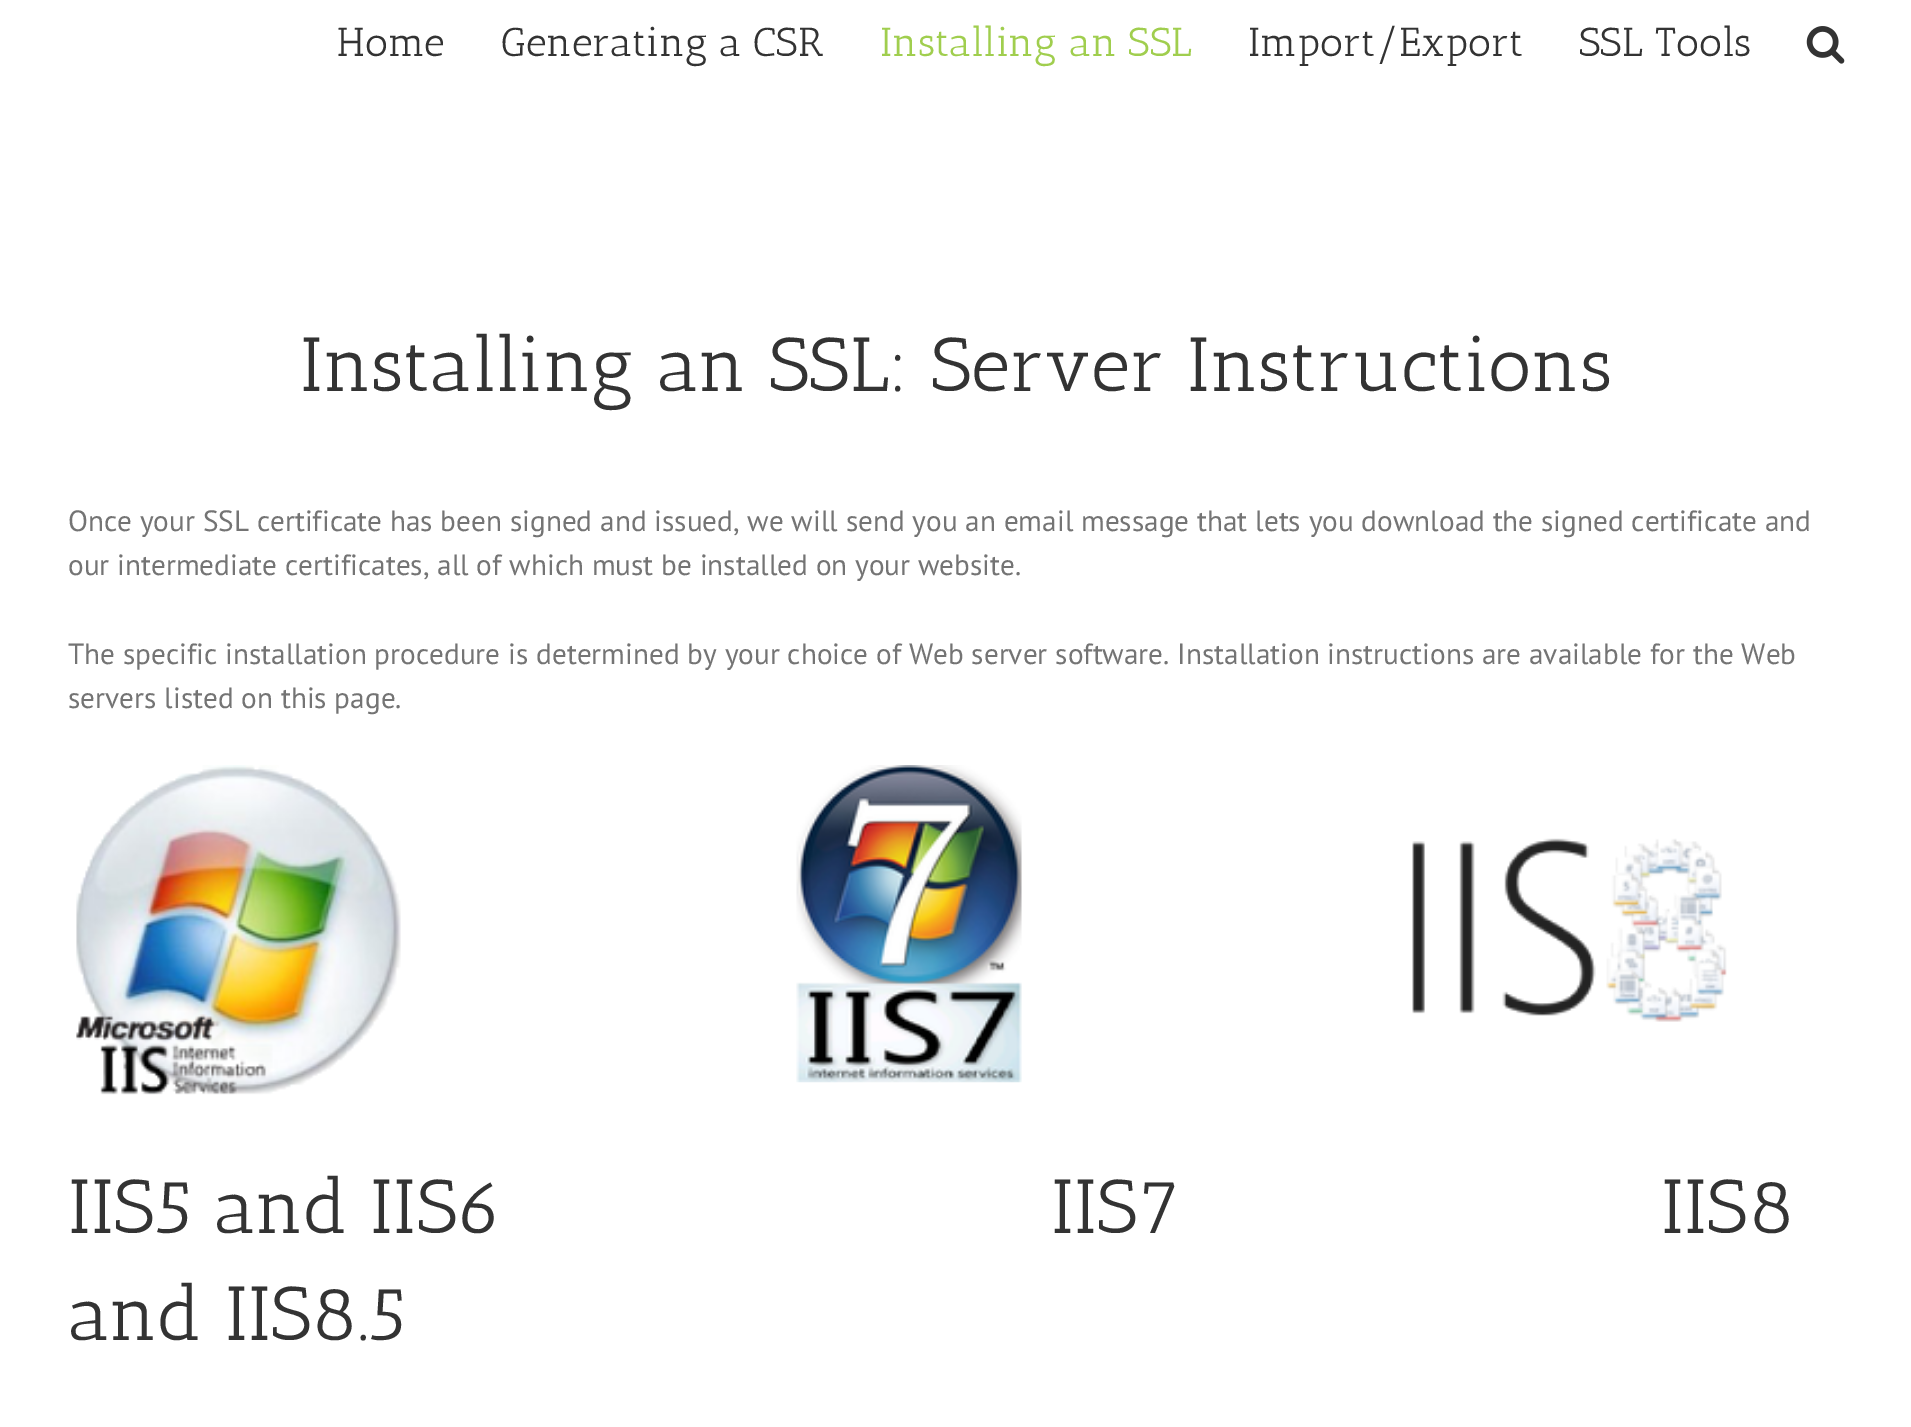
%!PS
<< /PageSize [1911 1427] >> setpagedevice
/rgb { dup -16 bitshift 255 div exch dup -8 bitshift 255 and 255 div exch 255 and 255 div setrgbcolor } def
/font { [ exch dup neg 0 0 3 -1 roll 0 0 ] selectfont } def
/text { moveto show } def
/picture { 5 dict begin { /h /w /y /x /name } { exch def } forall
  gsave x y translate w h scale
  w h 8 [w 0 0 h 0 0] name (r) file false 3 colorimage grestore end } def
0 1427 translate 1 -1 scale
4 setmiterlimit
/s1 { /AnticSlab-Regular 40.5 font 16#333333 rgb } def
/s2 { /AnticSlab-Regular 40.5 font 16#A0CE4E rgb } def
/s3 { /AnticSlab-Regular 76.5 font 16#333333 rgb } def
/s4 { /PTSans-Regular 29.25 font 16#747474 rgb } def
16#FFFFFF rgb
0 0 1911 1427 rectfill
s1
(Home) 337 56 text
(Generating a CSR) 501 56 text
s2
(Installing an SSL) 880 56 text
s1
(Import/Export) 1248 56 text
(SSL Tools) 1579 56 text
(pic1.raw) 1806 26 39 38 picture
s3
(Installing an SSL: Server Instructions) 300 391 text
s4
(Once your SSL certificate has been signed and issued, we will send you an email message that lets you download the signed certificate and) 68 531 text
(our intermediate certificates, all of which must be installed on your website.) 68 575 text
(The specific installation procedure is determined by your choice of Web server software. Installation instructions are available for the Web) 68 664 text
(servers listed on this page.) 68 708 text
(pic2.raw) 76 765 325 330 picture
(pic3.raw) 796 765 226 318 picture
(pic4.raw) 1412 838 315 184 picture
s3
(IIS5 and IIS6) 68 1233 text
(IIS7) 1051 1233 text
(IIS8) 1661 1233 text
(and IIS8.5) 68 1340 text
showpage
